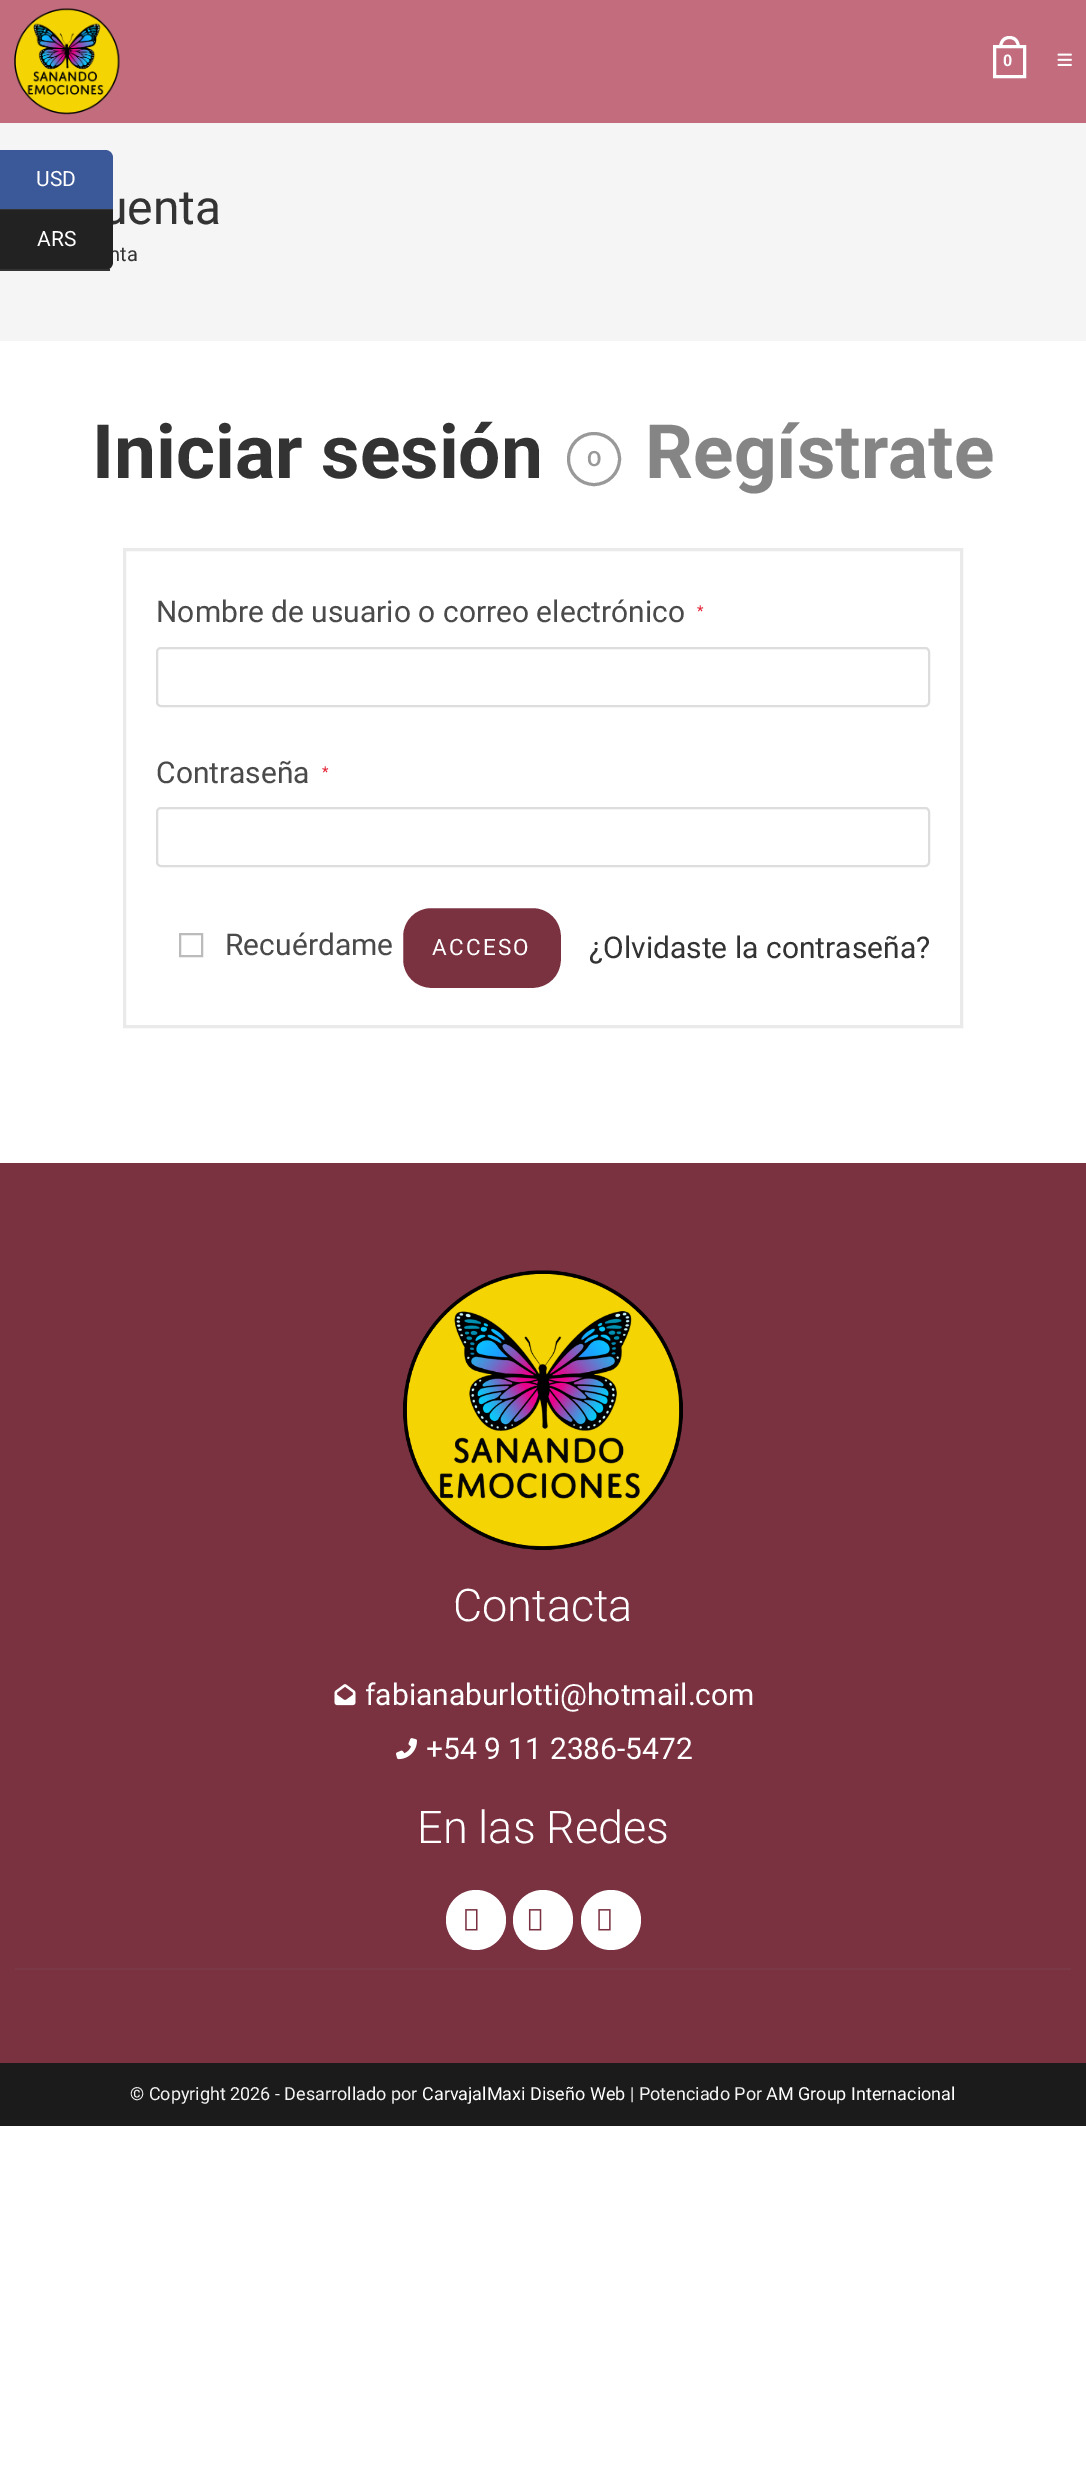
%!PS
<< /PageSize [1086 2492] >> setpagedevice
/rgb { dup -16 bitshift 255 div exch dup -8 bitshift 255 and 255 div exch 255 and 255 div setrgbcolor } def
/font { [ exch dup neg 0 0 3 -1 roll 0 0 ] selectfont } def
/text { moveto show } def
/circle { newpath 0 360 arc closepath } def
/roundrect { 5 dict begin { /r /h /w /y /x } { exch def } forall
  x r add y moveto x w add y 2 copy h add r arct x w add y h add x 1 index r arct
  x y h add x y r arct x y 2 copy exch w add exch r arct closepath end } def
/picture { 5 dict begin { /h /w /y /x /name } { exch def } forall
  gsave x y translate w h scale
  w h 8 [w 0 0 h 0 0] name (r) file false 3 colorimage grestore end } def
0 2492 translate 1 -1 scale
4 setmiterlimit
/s1 { /Roboto-Regular 48 font 16#333333 rgb } def
/s2 { /Roboto-Regular 21 font 16#FFFFFF rgb } def
/s3 { /Roboto-Regular 20 font 16#333333 rgb } def
/s4 { /Roboto-Bold 75 font 16#333333 rgb } def
/s5 { /Roboto-SemiBold 21 font 16#999999 rgb } def
/s6 { /Roboto-Bold 75 font 16#858585 rgb } def
/s7 { /Roboto-Regular 30 font 16#4A4A4A rgb } def
/s8 { /Roboto-Regular 15 font 16#E42234 rgb } def
/s9 { /Roboto-Regular 30 font 16#333333 rgb } def
/s10 { /Roboto-Light 45 font 16#FFFFFF rgb } def
/s11 { /Roboto-Regular 30 font 16#FFFFFF rgb } def
/s12 { /Roboto-Regular 18 font 16#F4F4F4 rgb } def
/s13 { /Roboto-Regular 18 font 16#FFFFFF rgb } def
16#FFFFFF rgb
0 0 1086 2492 rectfill
16#F5F5F5 rgb
0 123 1086 218 rectfill
s1
(uenta) 101 224 text
16#3B5998 rgb
0 150 moveto 105 150 lineto 109.5 150 113 153.5 113 158 curveto 113 210 lineto 0 210 lineto closepath fill
16#333333 rgb
0 209 113 1 rectfill
s2
(USD) 36 186 text
s3
(nta) 109 261 text
16#222222 rgb
0 210 moveto 113 210 lineto 113 262 lineto 113 266.5 109.5 270 105 270 curveto 0 270 lineto closepath fill
16#333333 rgb
0 269 110 2 rectfill
s2
(ARS) 37 246 text
16#C26C7E rgb
0 0 1086 123 rectfill
(pic1.raw) 14 8 106 107 picture
16#FFFFFF rgb
3 setlinewidth
994.5 46.5 30 30 rectstroke
1009.5 36 moveto 1016.5 36 1020 41.5 1020 48 curveto 999 48 lineto 999 41.5 1002.5 36 1009.5 36 curveto closepath 1009.5 39 moveto 1015 39 1017 43.5 1017 48 curveto 1002 48 lineto 1002 43.5 1004 39 1009.5 39 curveto closepath eofill
/Roboto-Bold 16 font
1003 66 moveto 4 0 (0) ashow
(pic2.raw) 1057 53 15 13 picture
s4
(Iniciar sesión) 92 478 text
16#999999 rgb
594 459 25.5 circle stroke
s5
(O) 587 466 text
s6
(Regístrate) 645 478 text
16#EAEAEA rgb
124.5 549.5 837 477 rectstroke
s7
(Nombre de usuario o correo electrónico) 156 622 text
s8
(*) 697 616 text
16#DDDDDD rgb
2 setlinewidth
157 648 772 58 4 roundrect stroke
s7
(Contraseña) 156 783 text
s8
(*) 322 777 text
16#DDDDDD rgb
157 808 772 58 4 roundrect stroke
16#BBBBBB rgb
180 934 22 22 rectstroke
s7
(Recuérdame) 225 955 text
16#7A3241 rgb
402 907 160 82 29 roundrect gsave fill grestore
16#FFFFFF rgb
stroke
/Roboto-Regular 22.5 font
432 955 moveto 2.25 0 (ACCESO) ashow
s9
(¿Olvidaste la contraseña?) 589 958 text
16#7A3241 rgb
0 1163 1086 900 rectfill
(pic3.raw) 403 1270 280 280 picture
s10
(Contacta) 453 1621 text
(pic4.raw) 334 1684 22 22 picture
s11
(fabianaburlotti@hotmail.com) 365 1705 text
(pic5.raw) 396 1738 21 22 picture
(+54 9 11 2386-5472) 426 1759 text
s10
(En las Redes) 417 1843 text
476 1920 30 circle fill
(pic6.raw) 465 1909 13 22 picture
543 1920 30 circle fill
(pic7.raw) 528 1909 14 22 picture
611 1920 30 circle fill
(pic8.raw) 598 1909 13 22 picture
16#793946 rgb
15 1968 1056 2 rectfill
16#1B1B1B rgb
0 2063 1086 63 rectfill
s12
(© Copyright 2026 - Desarrollado por) 130 2100 text
s13
(CarvajalMaxi Diseño Web) 422 2100 text
s12
(| Potenciado Por) 630 2100 text
s13
(AM Group Internacional) 766 2100 text
showpage
